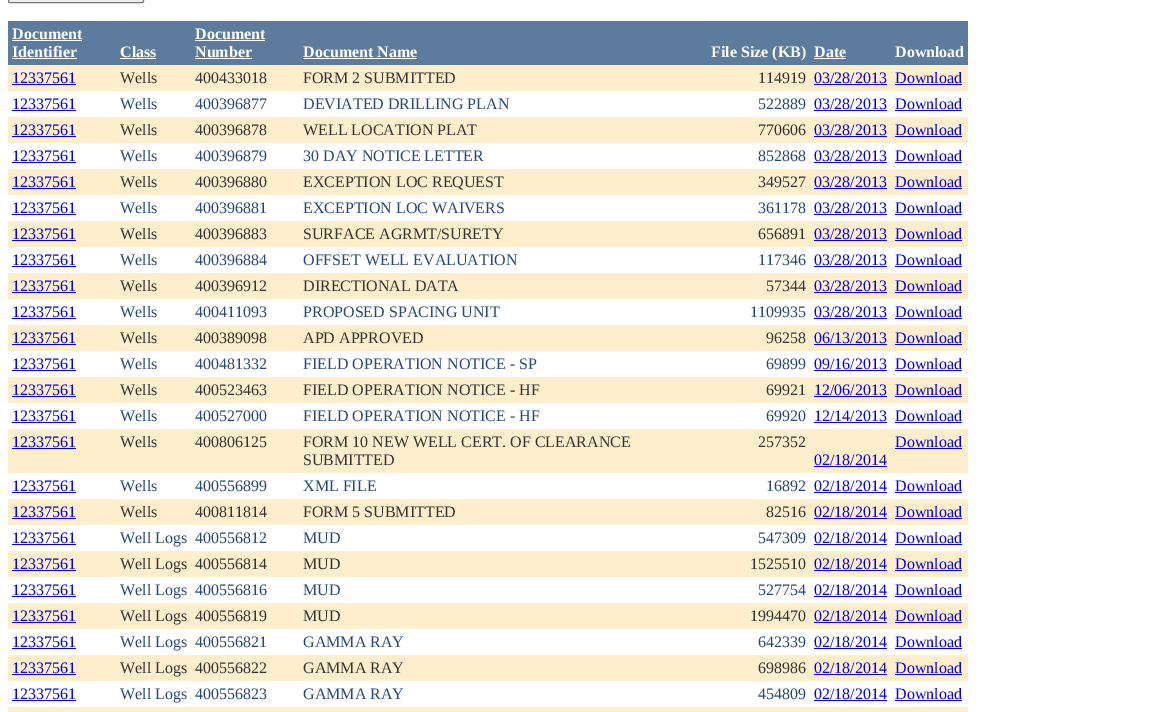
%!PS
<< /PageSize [1160 712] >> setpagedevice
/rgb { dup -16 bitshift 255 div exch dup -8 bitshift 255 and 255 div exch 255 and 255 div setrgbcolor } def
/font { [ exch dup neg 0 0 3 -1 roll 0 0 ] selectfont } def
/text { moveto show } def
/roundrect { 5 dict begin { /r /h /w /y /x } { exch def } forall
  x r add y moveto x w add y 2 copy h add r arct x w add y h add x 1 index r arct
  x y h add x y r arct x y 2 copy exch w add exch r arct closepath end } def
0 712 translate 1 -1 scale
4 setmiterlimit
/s1 { /LiberationSerif-Bold 16 font 16#FFFFFF rgb } def
/s2 { /LiberationSerif-Regular 16 font 16#0000EE rgb } def
/s3 { /LiberationSerif-Regular 16 font 16#333333 rgb } def
/s4 { /LiberationSerif-Regular 16 font 16#284775 rgb } def
16#FFFFFF rgb
0 0 1160 712 rectfill
16#EFEFEF rgb
8.5 -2.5 135 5 1.5 roundrect gsave fill grestore
16#767676 rgb
stroke
16#5D7B9D rgb
8 21 960 44 rectfill
s1
(Document) 12 39 text
12 40 70 1 rectfill
(Identifier) 12 57 text
12 58 65 1 rectfill
(Class) 120 57 text
120 58 36 1 rectfill
(Document) 195 39 text
195 40 70 1 rectfill
(Number) 195 57 text
195 58 57 1 rectfill
(Document Name) 303 57 text
303 58 114 1 rectfill
(File Size \(KB\)) 711 57 text
(Date) 814 57 text
814 58 32 1 rectfill
(Download) 895 57 text
16#FFEECC rgb
8 65 960 26 rectfill
s2
(12337561) 12 83 text
12 84 64 1 rectfill
s3
(Wells) 120 83 text
(400433018) 195 83 text
(FORM 2 SUBMITTED) 303 83 text
(114919) 758 83 text
s2
(03/28/2013) 814 83 text
814 84 73 1 rectfill
(Download) 895 83 text
895 84 67 1 rectfill
(12337561) 12 109 text
12 110 64 1 rectfill
s4
(Wells) 120 109 text
(400396877) 195 109 text
(DEVIATED DRILLING PLAN) 303 109 text
(522889) 758 109 text
s2
(03/28/2013) 814 109 text
814 110 73 1 rectfill
(Download) 895 109 text
895 110 67 1 rectfill
16#FFEECC rgb
8 117 960 26 rectfill
s2
(12337561) 12 135 text
12 136 64 1 rectfill
s3
(Wells) 120 135 text
(400396878) 195 135 text
(WELL LOCATION PLAT) 303 135 text
(770606) 758 135 text
s2
(03/28/2013) 814 135 text
814 136 73 1 rectfill
(Download) 895 135 text
895 136 67 1 rectfill
(12337561) 12 161 text
12 162 64 1 rectfill
s4
(Wells) 120 161 text
(400396879) 195 161 text
(30 DAY NOTICE LETTER) 303 161 text
(852868) 758 161 text
s2
(03/28/2013) 814 161 text
814 162 73 1 rectfill
(Download) 895 161 text
895 162 67 1 rectfill
16#FFEECC rgb
8 169 960 26 rectfill
s2
(12337561) 12 187 text
12 188 64 1 rectfill
s3
(Wells) 120 187 text
(400396880) 195 187 text
(EXCEPTION LOC REQUEST) 303 187 text
(349527) 758 187 text
s2
(03/28/2013) 814 187 text
814 188 73 1 rectfill
(Download) 895 187 text
895 188 67 1 rectfill
(12337561) 12 213 text
12 214 64 1 rectfill
s4
(Wells) 120 213 text
(400396881) 195 213 text
(EXCEPTION LOC WAIVERS) 303 213 text
(361178) 758 213 text
s2
(03/28/2013) 814 213 text
814 214 73 1 rectfill
(Download) 895 213 text
895 214 67 1 rectfill
16#FFEECC rgb
8 221 960 26 rectfill
s2
(12337561) 12 239 text
12 240 64 1 rectfill
s3
(Wells) 120 239 text
(400396883) 195 239 text
(SURFACE AGRMT/SURETY) 303 239 text
(656891) 758 239 text
s2
(03/28/2013) 814 239 text
814 240 73 1 rectfill
(Download) 895 239 text
895 240 67 1 rectfill
(12337561) 12 265 text
12 266 64 1 rectfill
s4
(Wells) 120 265 text
(400396884) 195 265 text
(OFFSET WELL EVALUATION) 303 265 text
(117346) 758 265 text
s2
(03/28/2013) 814 265 text
814 266 73 1 rectfill
(Download) 895 265 text
895 266 67 1 rectfill
16#FFEECC rgb
8 273 960 26 rectfill
s2
(12337561) 12 291 text
12 292 64 1 rectfill
s3
(Wells) 120 291 text
(400396912) 195 291 text
(DIRECTIONAL DATA) 303 291 text
(57344) 766 291 text
s2
(03/28/2013) 814 291 text
814 292 73 1 rectfill
(Download) 895 291 text
895 292 67 1 rectfill
(12337561) 12 317 text
12 318 64 1 rectfill
s4
(Wells) 120 317 text
(400411093) 195 317 text
(PROPOSED SPACING UNIT) 303 317 text
(1109935) 750 317 text
s2
(03/28/2013) 814 317 text
814 318 73 1 rectfill
(Download) 895 317 text
895 318 67 1 rectfill
16#FFEECC rgb
8 325 960 26 rectfill
s2
(12337561) 12 343 text
12 344 64 1 rectfill
s3
(Wells) 120 343 text
(400389098) 195 343 text
(APD APPROVED) 303 343 text
(96258) 766 343 text
s2
(06/13/2013) 814 343 text
814 344 73 1 rectfill
(Download) 895 343 text
895 344 67 1 rectfill
(12337561) 12 369 text
12 370 64 1 rectfill
s4
(Wells) 120 369 text
(400481332) 195 369 text
(FIELD OPERATION NOTICE - SP) 303 369 text
(69899) 766 369 text
s2
(09/16/2013) 814 369 text
814 370 73 1 rectfill
(Download) 895 369 text
895 370 67 1 rectfill
16#FFEECC rgb
8 377 960 26 rectfill
s2
(12337561) 12 395 text
12 396 64 1 rectfill
s3
(Wells) 120 395 text
(400523463) 195 395 text
(FIELD OPERATION NOTICE - HF) 303 395 text
(69921) 766 395 text
s2
(12/06/2013) 814 395 text
814 396 73 1 rectfill
(Download) 895 395 text
895 396 67 1 rectfill
(12337561) 12 421 text
12 422 64 1 rectfill
s4
(Wells) 120 421 text
(400527000) 195 421 text
(FIELD OPERATION NOTICE - HF) 303 421 text
(69920) 766 421 text
s2
(12/14/2013) 814 421 text
814 422 73 1 rectfill
(Download) 895 421 text
895 422 67 1 rectfill
16#FFEECC rgb
8 429 960 44 rectfill
s2
(12337561) 12 447 text
12 448 64 1 rectfill
s3
(Wells) 120 447 text
(400806125) 195 447 text
(FORM 10 NEW WELL CERT. OF CLEARANCE) 303 447 text
(SUBMITTED) 303 465 text
(257352) 758 447 text
s2
(Download) 895 447 text
895 448 67 1 rectfill
(02/18/2014) 814 465 text
814 466 73 1 rectfill
(12337561) 12 491 text
12 492 64 1 rectfill
s4
(Wells) 120 491 text
(400556899) 195 491 text
(XML FILE) 303 491 text
(16892) 766 491 text
s2
(02/18/2014) 814 491 text
814 492 73 1 rectfill
(Download) 895 491 text
895 492 67 1 rectfill
16#FFEECC rgb
8 499 960 26 rectfill
s2
(12337561) 12 517 text
12 518 64 1 rectfill
s3
(Wells) 120 517 text
(400811814) 195 517 text
(FORM 5 SUBMITTED) 303 517 text
(82516) 766 517 text
s2
(02/18/2014) 814 517 text
814 518 73 1 rectfill
(Download) 895 517 text
895 518 67 1 rectfill
(12337561) 12 543 text
12 544 64 1 rectfill
s4
(Well Logs) 120 543 text
(400556812) 195 543 text
(MUD) 303 543 text
(547309) 758 543 text
s2
(02/18/2014) 814 543 text
814 544 73 1 rectfill
(Download) 895 543 text
895 544 67 1 rectfill
16#FFEECC rgb
8 551 960 26 rectfill
s2
(12337561) 12 569 text
12 570 64 1 rectfill
s3
(Well Logs) 120 569 text
(400556814) 195 569 text
(MUD) 303 569 text
(1525510) 750 569 text
s2
(02/18/2014) 814 569 text
814 570 73 1 rectfill
(Download) 895 569 text
895 570 67 1 rectfill
(12337561) 12 595 text
12 596 64 1 rectfill
s4
(Well Logs) 120 595 text
(400556816) 195 595 text
(MUD) 303 595 text
(527754) 758 595 text
s2
(02/18/2014) 814 595 text
814 596 73 1 rectfill
(Download) 895 595 text
895 596 67 1 rectfill
16#FFEECC rgb
8 603 960 26 rectfill
s2
(12337561) 12 621 text
12 622 64 1 rectfill
s3
(Well Logs) 120 621 text
(400556819) 195 621 text
(MUD) 303 621 text
(1994470) 750 621 text
s2
(02/18/2014) 814 621 text
814 622 73 1 rectfill
(Download) 895 621 text
895 622 67 1 rectfill
(12337561) 12 647 text
12 648 64 1 rectfill
s4
(Well Logs) 120 647 text
(400556821) 195 647 text
(GAMMA RAY) 303 647 text
(642339) 758 647 text
s2
(02/18/2014) 814 647 text
814 648 73 1 rectfill
(Download) 895 647 text
895 648 67 1 rectfill
16#FFEECC rgb
8 655 960 26 rectfill
s2
(12337561) 12 673 text
12 674 64 1 rectfill
s3
(Well Logs) 120 673 text
(400556822) 195 673 text
(GAMMA RAY) 303 673 text
(698986) 758 673 text
s2
(02/18/2014) 814 673 text
814 674 73 1 rectfill
(Download) 895 673 text
895 674 67 1 rectfill
(12337561) 12 699 text
12 700 64 1 rectfill
s4
(Well Logs) 120 699 text
(400556823) 195 699 text
(GAMMA RAY) 303 699 text
(454809) 758 699 text
s2
(02/18/2014) 814 699 text
814 700 73 1 rectfill
(Download) 895 699 text
895 700 67 1 rectfill
16#FFEECC rgb
8 707 960 5 rectfill
showpage
